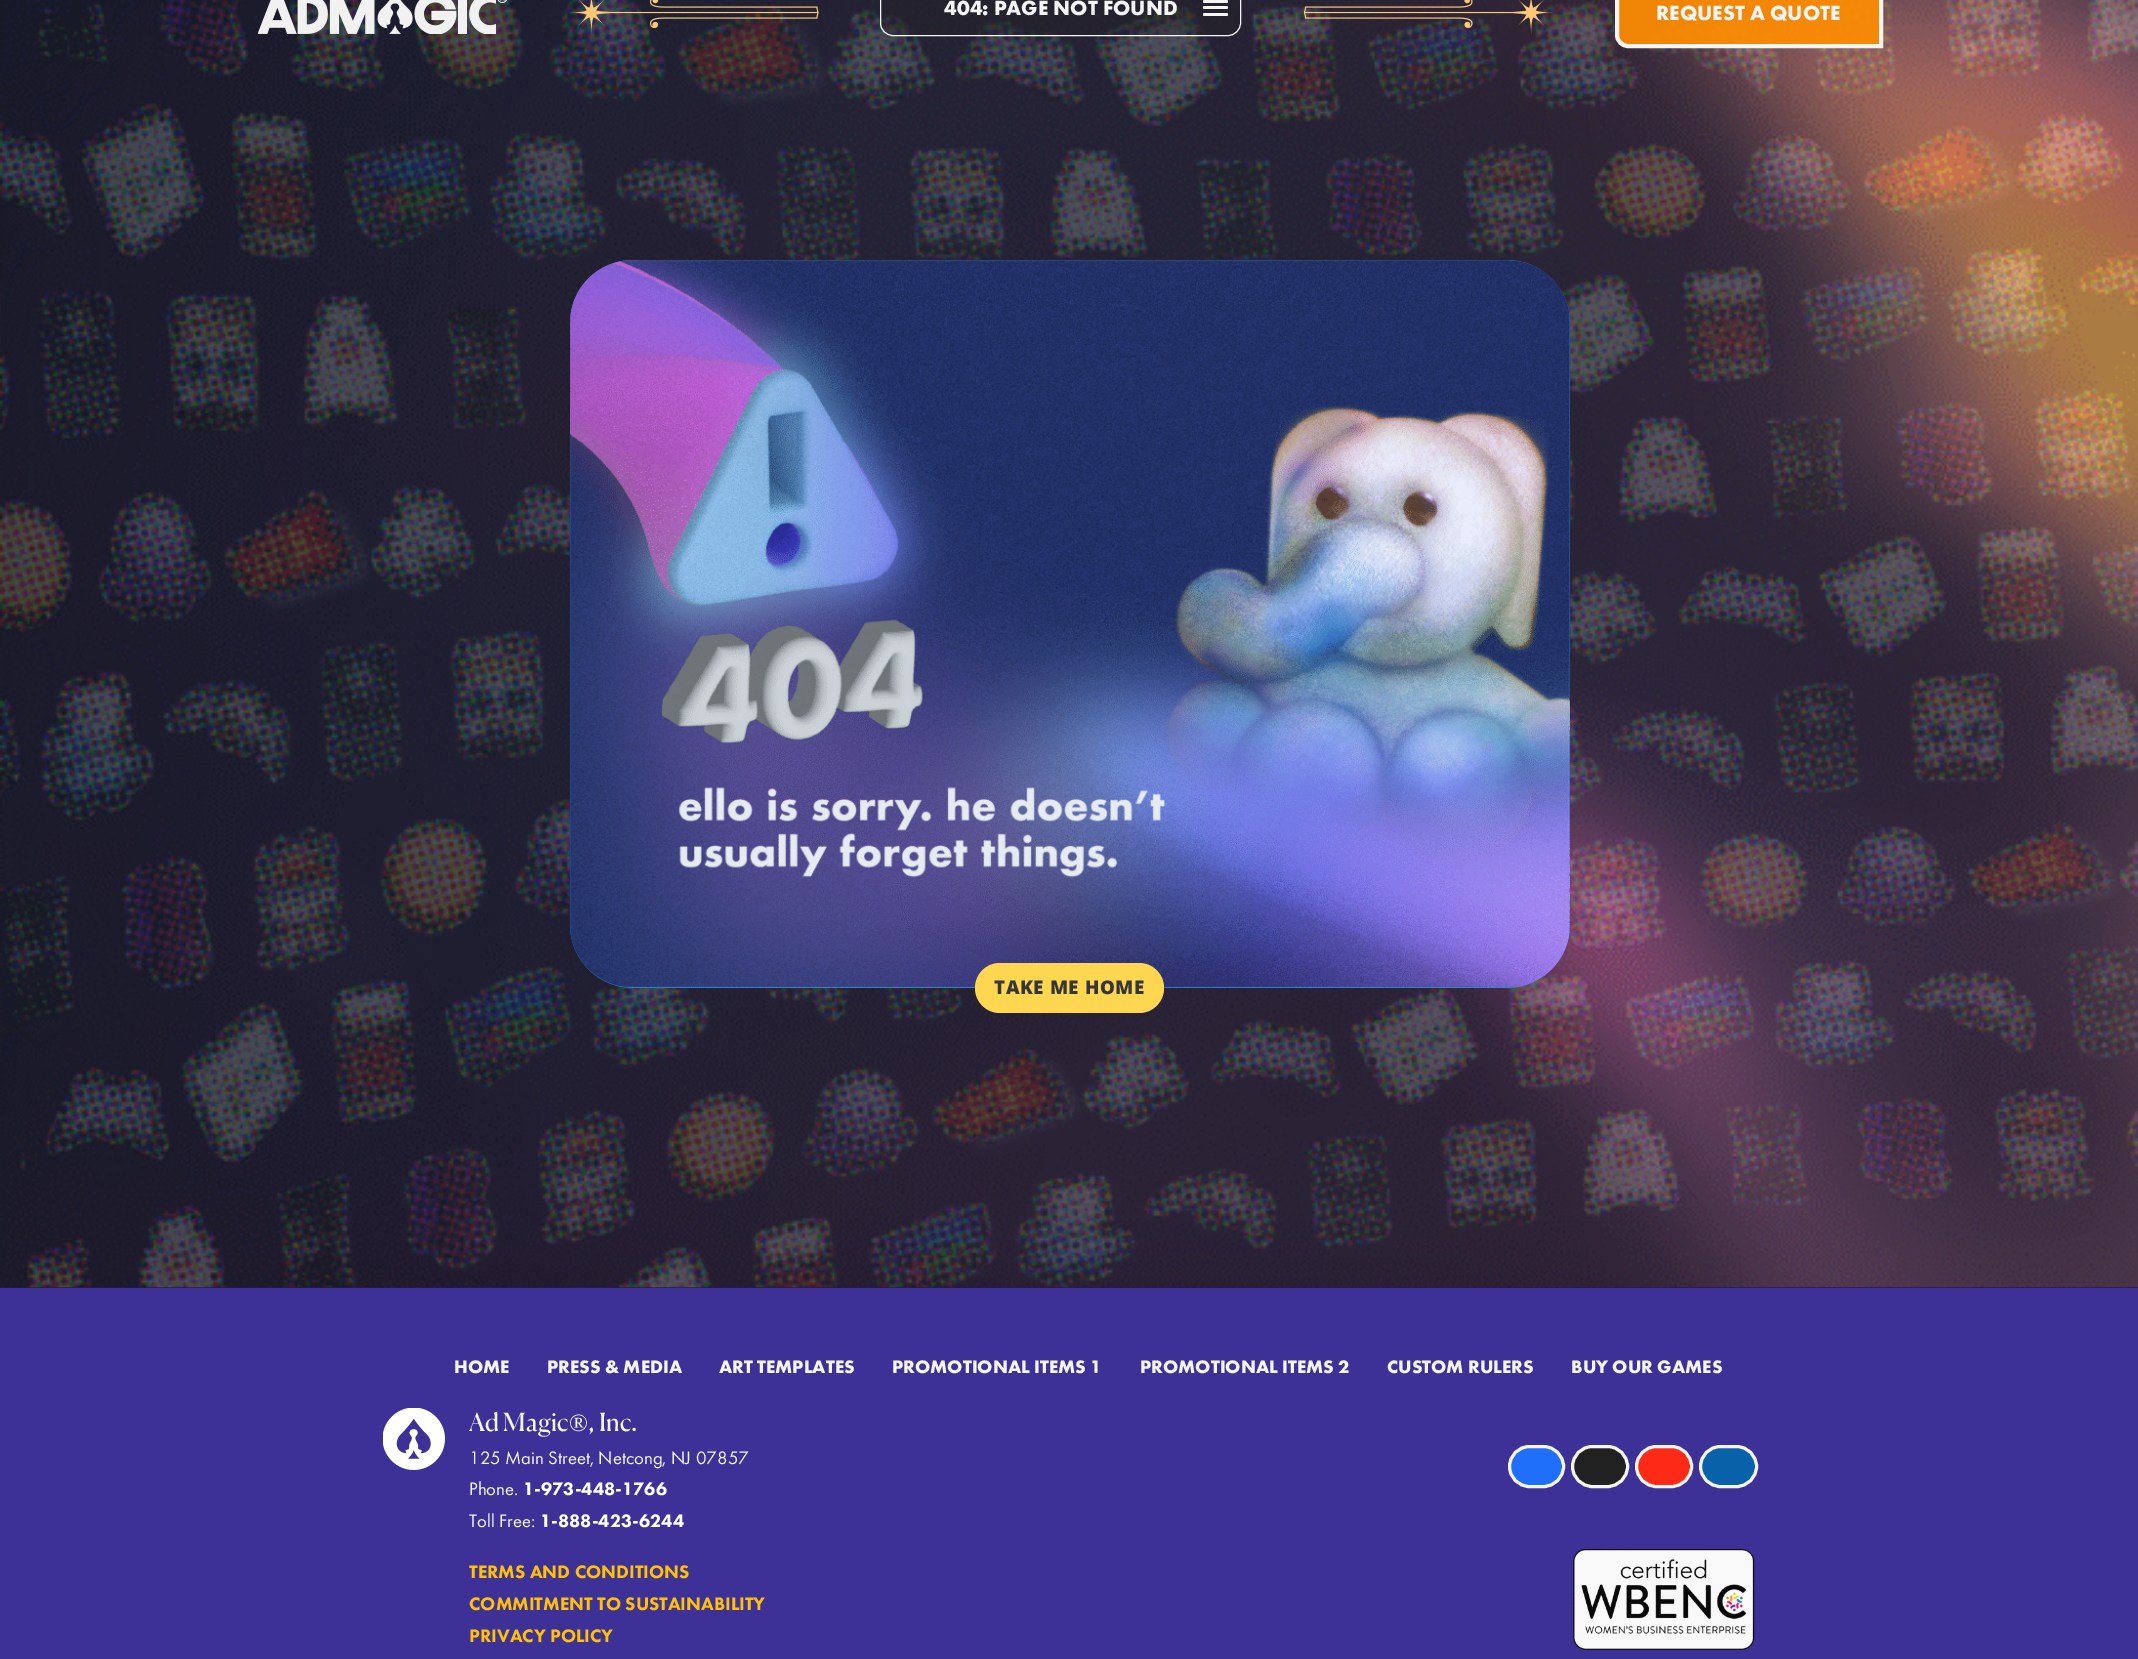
%!PS
<< /PageSize [2138 1659] /PageUsesTransparency true >> setpagedevice
/rgb { dup -16 bitshift 255 div exch dup -8 bitshift 255 and 255 div exch 255 and 255 div setrgbcolor } def
/font { [ exch dup neg 0 0 3 -1 roll 0 0 ] selectfont } def
/text { moveto show } def
/alpha { dup .setfillconstantalpha .setstrokeconstantalpha } def
/roundrect { 5 dict begin { /r /h /w /y /x } { exch def } forall
  x r add y moveto x w add y 2 copy h add r arct x w add y h add x 1 index r arct
  x y h add x y r arct x y 2 copy exch w add exch r arct closepath end } def
/picture { 5 dict begin { /h /w /y /x /name } { exch def } forall
  gsave x y translate w h scale
  w h 8 [w 0 0 h 0 0] name (r) file false 3 colorimage grestore end } def
0 .pushpdf14devicefilter
0 1659 translate 1 -1 scale
4 setmiterlimit
/s1 { /FuturaPT-Bold 21.25 font 16#F5F5F5 rgb } def
/s2 { /FuturaPT-Bold 18.75 font 16#F5F5F5 rgb } def
/s3 { /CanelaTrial-Regular 25 font 16#F5F5F5 rgb } def
/s4 { /LiberationSerif-Regular 25 font 16#F5F5F5 rgb } def
/s5 { /FuturaPT-Regular 18.75 font 16#F5F5F5 rgb } def
/s6 { /FuturaPT-Black 18.75 font 16#FFFFFF rgb } def
/s7 { /FuturaPT-Black 18.75 font 16#FFC107 rgb } def
16#251763 rgb
0 0 2138 1659 rectfill
(pic4.raw) 0 0 2138 1288 picture
(pic1.raw) 258 0 249 34 picture
(pic2.raw) 569 0 250 35 picture
0.38 alpha
16#212121 rgb
880.5 -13.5 360 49 12.5 roundrect fill
1 alpha
16#F5F5F5 rgb
880.5 -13.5 360 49 12.5 roundrect stroke
s1
(404: PAGE NOT FOUND) 944 15 text
1203 6 25 3 1.5 roundrect fill
1203 0 25 3 1.5 roundrect fill
1203 13 25 3 1.5 roundrect fill
(pic3.raw) 1304 0 249 35 picture
0.92 alpha
16#FF8C00 rgb
1628 -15 moveto 1870 -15 lineto 1876 -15 1881 -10 1881 -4 curveto 1881 46 lineto 1628 46 lineto 1622 46 1617 41 1617 35 curveto 1617 -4 lineto 1617 -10 1622 -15 1628 -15 curveto closepath fill
1 alpha
16#F5F5F5 rgb
4 setlinewidth
1628 -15 moveto 1870 -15 lineto 1876 -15 1881 -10 1881 -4 curveto 1881 46 lineto 1628 46 lineto 1622 46 1617 41 1617 35 curveto 1617 -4 lineto 1617 -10 1622 -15 1628 -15 curveto closepath stroke
(REQUEST A QUOTE) 1656 20 text
0.95 alpha
16#2196F3 rgb
570 260 1000 728 63 roundrect fill
1 alpha
(pic5.raw) 570 260 1000 728 picture
16#FFD64F rgb
975 963 189 50 25 roundrect fill
/NotoSans-Black 18.75 font
16#363636 rgb
994 994 moveto 0.6 0 (TAKE ME HOME) ashow
16#3D3197 rgb
0 1288 2138 371 rectfill
s2
(HOME) 454 1373 text
(PRESS & MEDIA) 547 1373 text
(ART TEMPLATES) 719 1373 text
(PROMOTIONAL ITEMS 1) 892 1373 text
(PROMOTIONAL ITEMS 2) 1140 1373 text
(CUSTOM RULERS) 1387 1373 text
(BUY OUR GAMES) 1571 1373 text
(pic6.raw) 383 1408 62 62 picture
s3
(Ad Magic) 469 1431 text
s4
(®) 569 1431 text
s3
(, Inc.) 588 1431 text
s5
(125 Main Street, Netcong, NJ 07857) 469 1464 text
(Phone.) 469 1495 text
s6
(1-973-448-1766) 523 1495 text
s5
(Toll Free:) 469 1527 text
s6
(1-888-423-6244) 540 1527 text
s7
(TERMS AND CONDITIONS) 469 1578 text
(COMMITMENT TO SUSTAINABILITY) 469 1610 text
(PRIVACY POLICY) 469 1642 text
16#206FF8 rgb
1509.5 1446.5 54 40 20 roundrect gsave fill grestore
16#F5F5F5 rgb
3 setlinewidth
stroke
16#212121 rgb
1572.5 1446.5 55 40 20 roundrect gsave fill grestore
16#F5F5F5 rgb
stroke
16#FD2A17 rgb
1636.5 1446.5 55 40 20 roundrect gsave fill grestore
16#F5F5F5 rgb
stroke
16#0961AA rgb
1700.5 1446.5 56 40 20 roundrect gsave fill grestore
16#F5F5F5 rgb
stroke
(pic7.raw) 1573 1548 182 102 picture
.poppdf14devicefilter showpage
